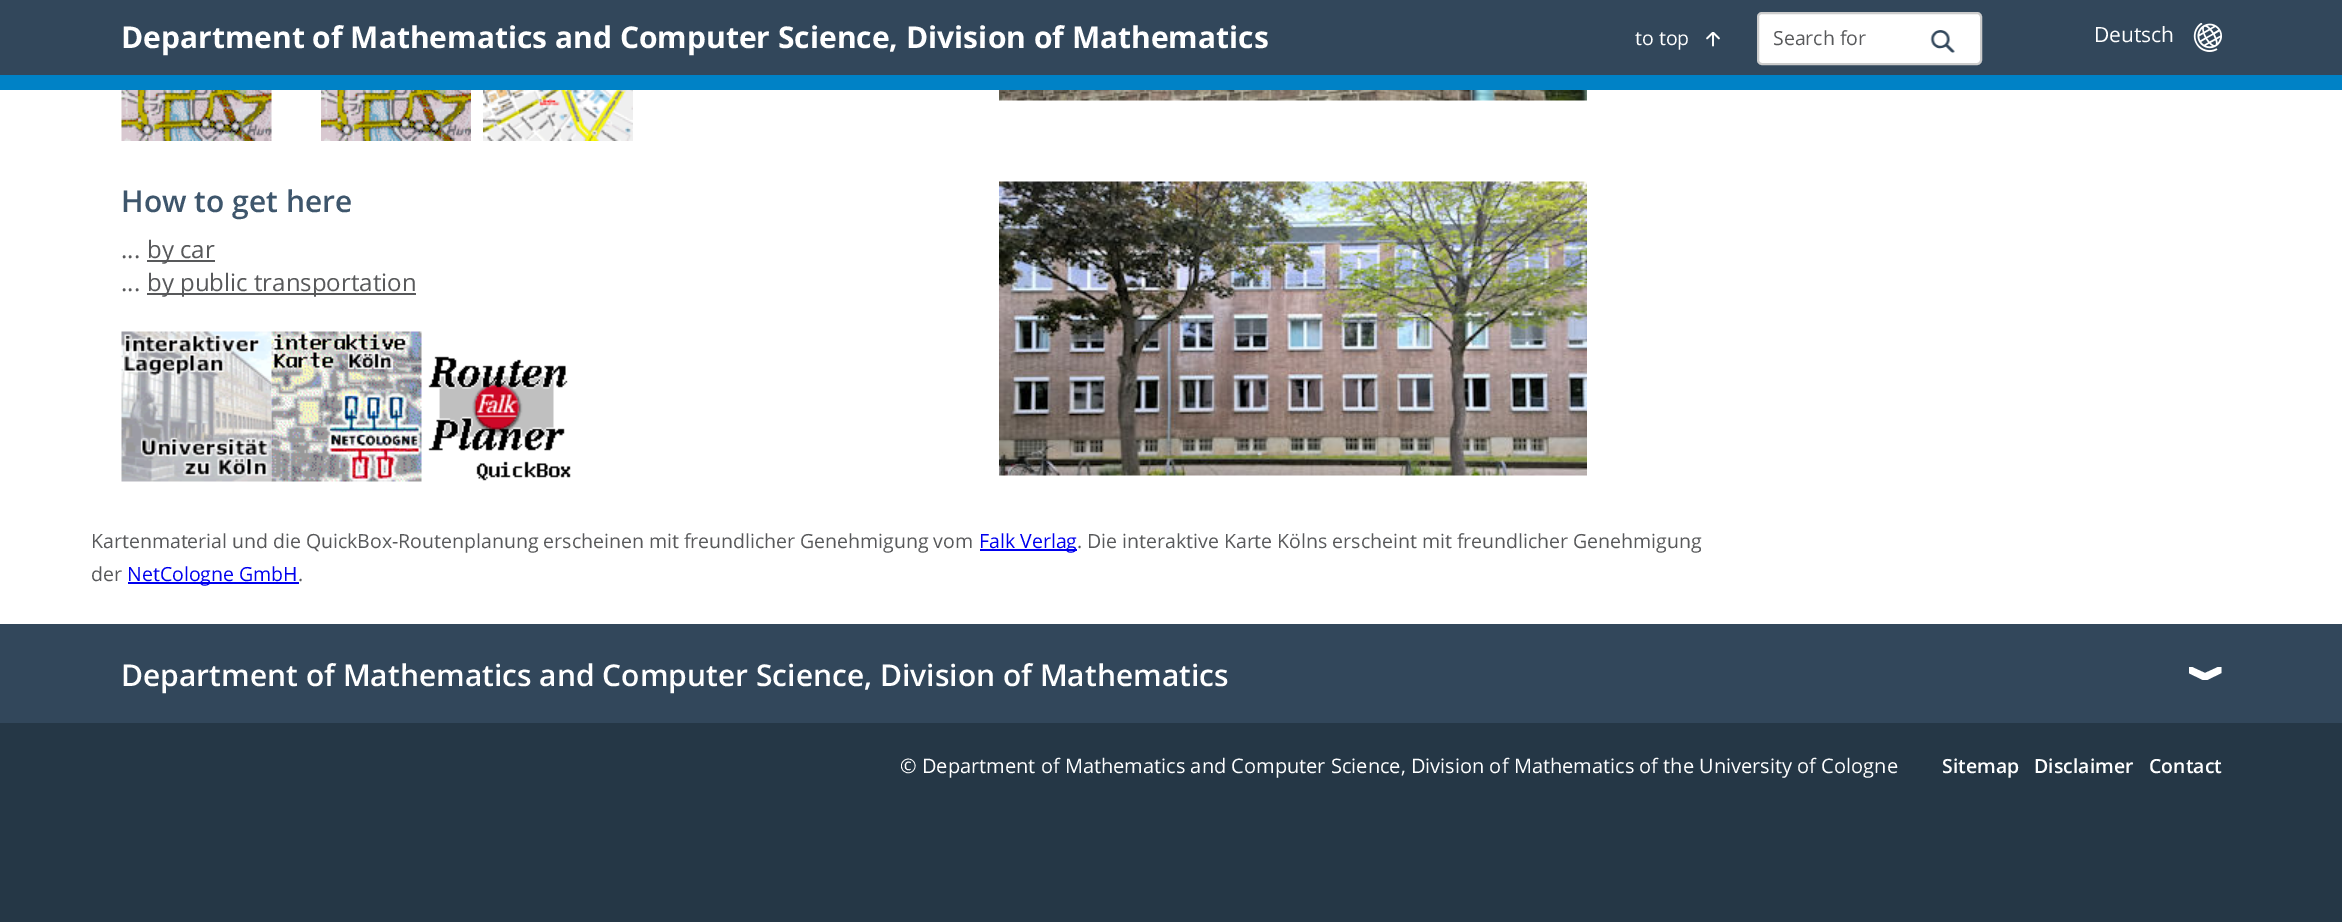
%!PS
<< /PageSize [2342 922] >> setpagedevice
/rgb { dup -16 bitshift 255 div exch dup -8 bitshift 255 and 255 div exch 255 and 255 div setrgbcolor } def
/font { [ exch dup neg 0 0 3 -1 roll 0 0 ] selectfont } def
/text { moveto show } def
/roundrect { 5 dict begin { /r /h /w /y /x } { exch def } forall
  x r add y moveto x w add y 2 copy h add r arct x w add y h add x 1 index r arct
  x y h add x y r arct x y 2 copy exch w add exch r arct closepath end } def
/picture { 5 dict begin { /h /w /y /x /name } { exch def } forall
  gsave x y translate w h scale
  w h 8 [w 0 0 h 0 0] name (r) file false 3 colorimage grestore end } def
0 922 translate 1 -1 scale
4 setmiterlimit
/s1 { /OpenSans-Bold 30 font 16#FFFFFF rgb } def
/s2 { /OpenSans-Regular 19.5 font 16#FFFFFF rgb } def
/s3 { /OpenSans-Regular 19.5 font 16#58595B rgb } def
/s4 { /OpenSans-Regular 21 font 16#FFFFFF rgb } def
/s5 { /OpenSans-SemiBold 30 font 16#3E566C rgb } def
/s6 { /OpenSans-Regular 24 font 16#58595B rgb } def
/s7 { /OpenSans-Regular 19.5 font 16#0000EE rgb } def
/s8 { /OpenSans-SemiBold 30 font 16#FFFFFF rgb } def
/s9 { /OpenSans-Regular 20 font 16#FFFFFF rgb } def
/s10 { /OpenSans-SemiBold 19.5 font 16#FFFFFF rgb } def
16#FFFFFF rgb
0 0 2342 922 rectfill
16#32475B rgb
0 0 2342 75 rectfill
16#0082C6 rgb
0 75 2342 15 rectfill
s1
(Department of Mathematics and Computer Science, Division of Mathematics) 121 48 text
(pic1.raw) 1706 32 14 15 picture
s2
(to top) 1635 45 text
1758 13 223 51 4 roundrect gsave fill grestore
16#CCCCCC rgb
2 setlinewidth
stroke
s3
(Search for) 1773 45 text
(pic2.raw) 1930 30 25 23 picture
s4
(Deutsch) 2094 42 text
(pic3.raw) 2193 23 29 29 picture
(pic4.raw) 121 90 151 51 picture
(pic5.raw) 321 90 150 51 picture
(pic6.raw) 483 90 150 51 picture
(pic7.raw) 999 90 588 11 picture
s5
(How to get here) 121 212 text
s6
(...) 121 258 text
147 260 68 2 rectfill
(by car) 147 258 text
(...) 121 291 text
147 293 269 2 rectfill
(by public transportation) 147 291 text
(pic8.raw) 121 331 151 151 picture
(pic9.raw) 271 331 151 151 picture
(pic10.raw) 428 356 143 125 picture
(pic11.raw) 999 181 588 295 picture
s3
(Kartenmaterial und die QuickBox-Routenplanung erscheinen mit freundlicher Genehmigung vom) 91 548 text
16#0000EE rgb
980 549 97 2 rectfill
(Falk Verlag) 979 548 text
s3
(. Die interaktive Karte Kölns erscheint mit freundlicher Genehmigung) 1077 548 text
(der) 91 581 text
16#0000EE rgb
128 582 171 2 rectfill
(NetCologne GmbH) 127 581 text
s3
(.) 298 581 text
16#32475B rgb
0 624 2342 99 rectfill
gsave
2189 657 33 33 rectclip
16#FFFFFF rgb
2188.5 673 moveto 2203 680 lineto 2207 680 lineto 2221.5 673 lineto 2221.5 667 lineto 2218 667 lineto 2205 673 lineto 2192 667 lineto 2188.5 667 lineto closepath fill
grestore
s8
(Department of Mathematics and Computer Science, Division of Mathematics) 121 686 text
16#253746 rgb
0 723 2342 199 rectfill
s9
(© Department of Mathematics and Computer Science, Division of Mathematics of the University of Cologne) 900 773 text
s10
(Sitemap) 1942 773 text
(Disclaimer) 2034 773 text
(Contact) 2149 773 text
showpage
